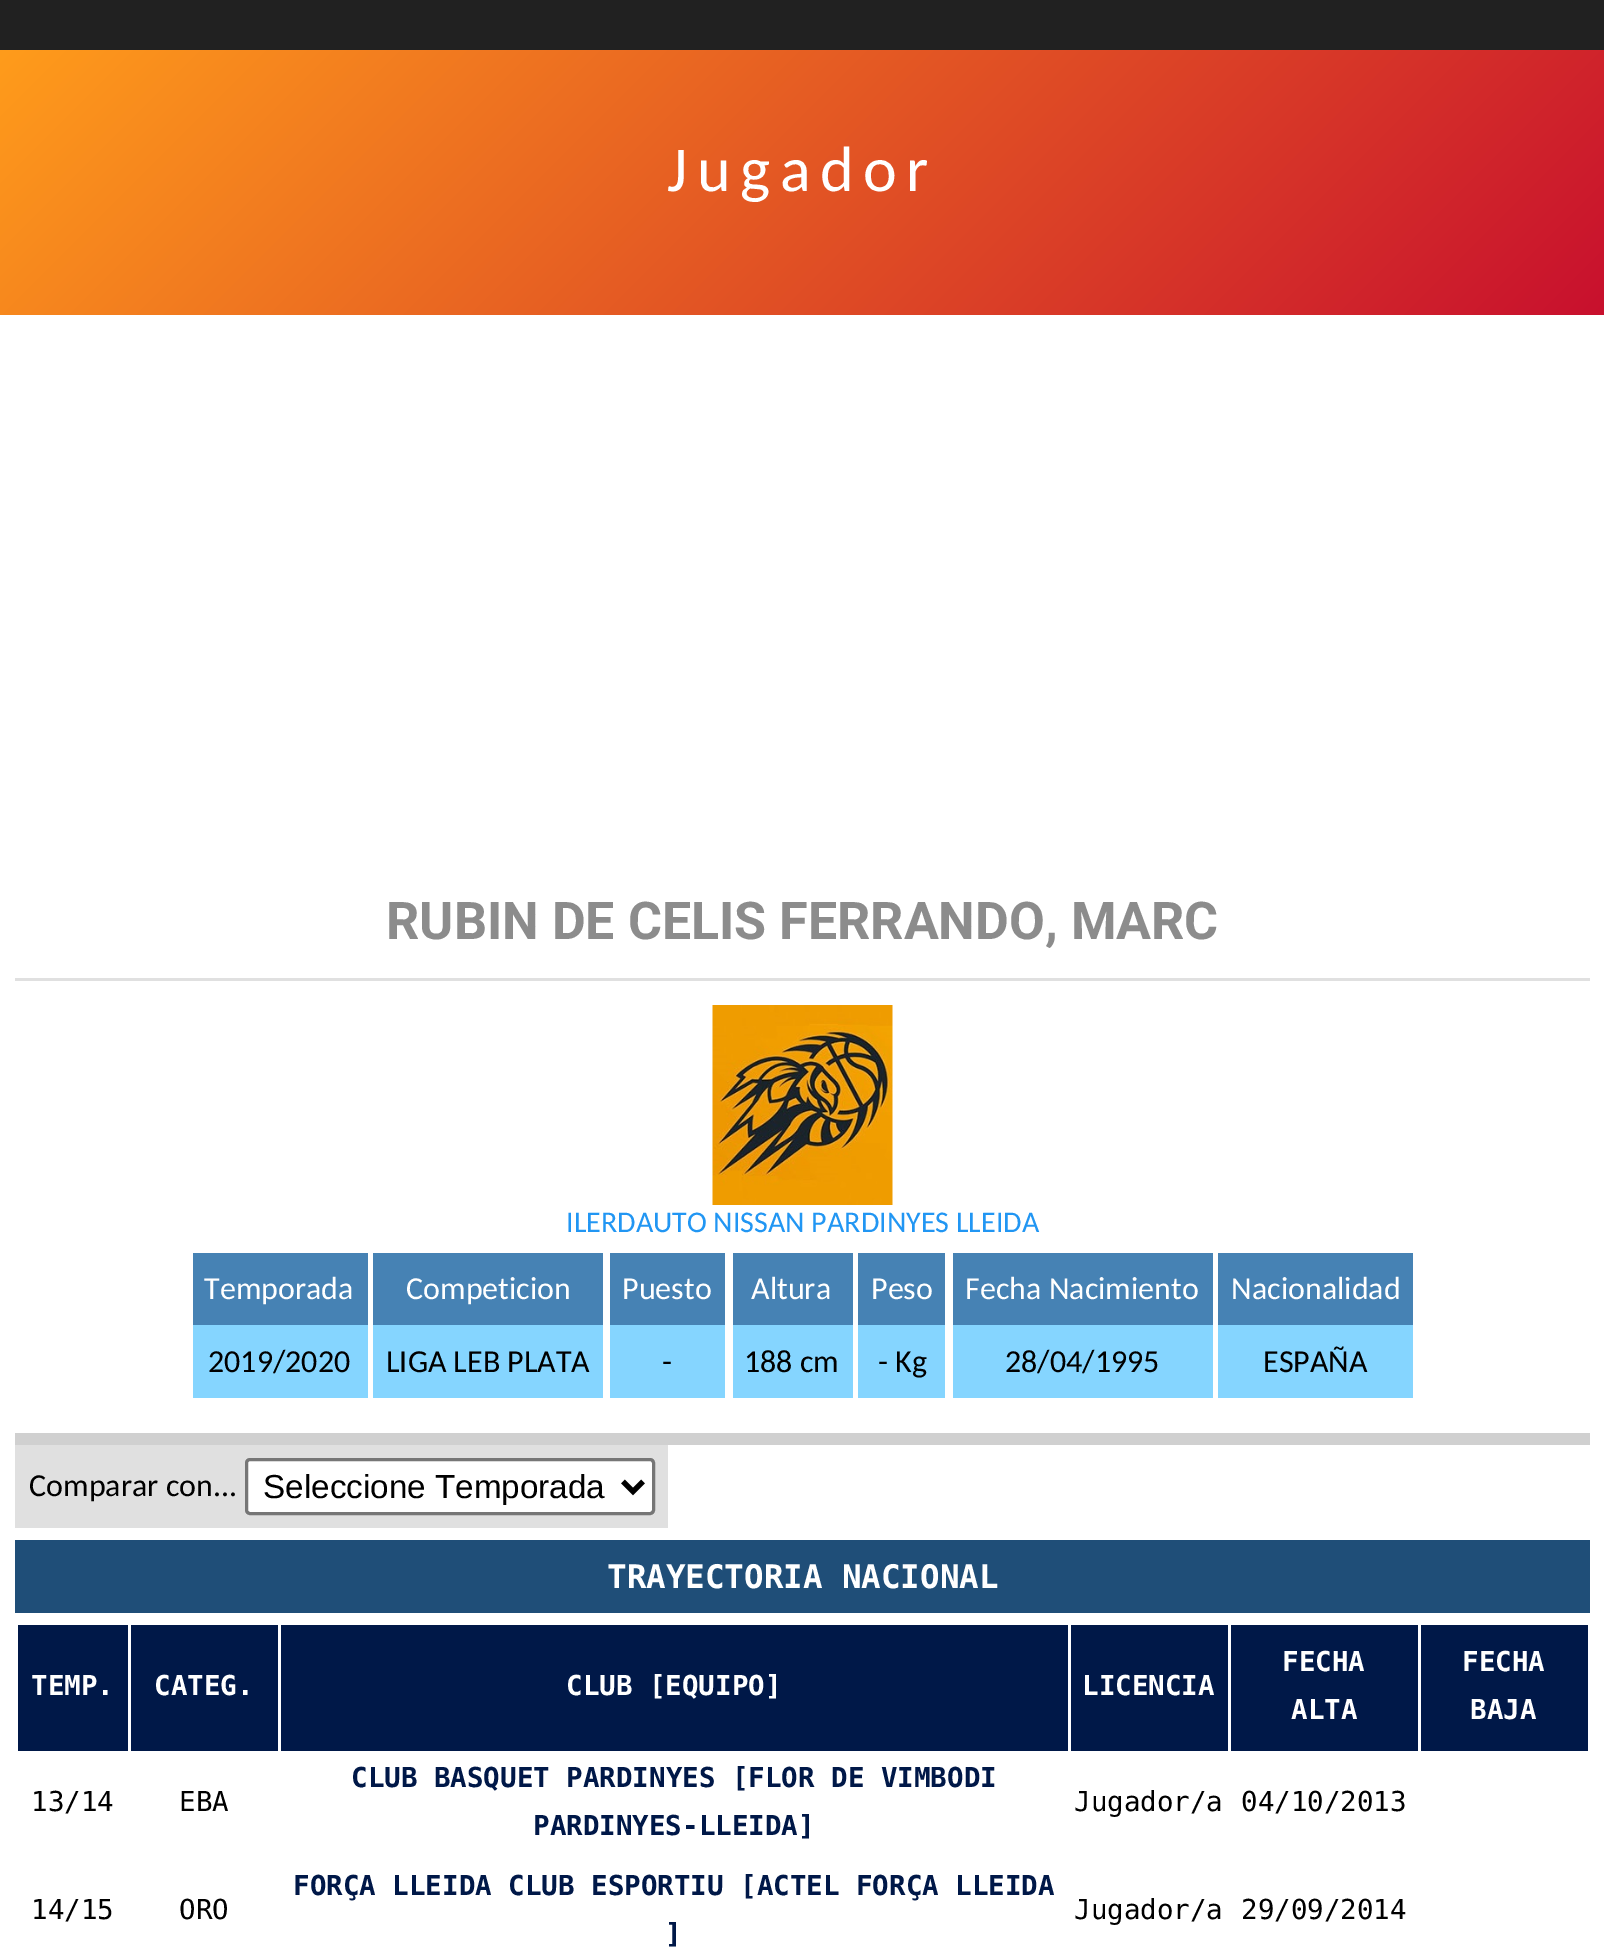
%!PS
<< /PageSize [1604 1947] >> setpagedevice
/rgb { dup -16 bitshift 255 div exch dup -8 bitshift 255 and 255 div exch 255 and 255 div setrgbcolor } def
/font { [ exch dup neg 0 0 3 -1 roll 0 0 ] selectfont } def
/text { moveto show } def
/roundrect { 5 dict begin { /r /h /w /y /x } { exch def } forall
  x r add y moveto x w add y 2 copy h add r arct x w add y h add x 1 index r arct
  x y h add x y r arct x y 2 copy exch w add exch r arct closepath end } def
/picture { 5 dict begin { /h /w /y /x /name } { exch def } forall
  gsave x y translate w h scale
  w h 8 [w 0 0 h 0 0] name (r) file false 3 colorimage grestore end } def
0 1947 translate 1 -1 scale
4 setmiterlimit
/s1 { /Roboto-Bold 52 font 16#8C8C8C rgb } def
/s2 { /Carlito-Regular 30 font 16#2196F3 rgb } def
/s3 { /Carlito-Regular 32 font 16#FFFFFF rgb } def
/s4 { /Carlito-Regular 32 font 16#000000 rgb } def
/s5 { /LiberationSans-Regular 33.25 font 16#000000 rgb } def
/s6 { /DejaVuSansMono-Bold 32.5 font 16#FFFFFF rgb } def
/s7 { /DejaVuSansMono-Bold 27.5 font 16#FFFFFF rgb } def
/s8 { /DejaVuSansMono-Regular 27.5 font 16#000000 rgb } def
/s9 { /DejaVuSansMono-Bold 27.5 font 16#001848 rgb } def
16#212121 rgb
0 0 1604 1947 rectfill
16#FFFFFF rgb
0 315 1604 1632 rectfill
gsave 0 50 moveto 1604 50 lineto 1604 315 lineto 0 315 lineto closepath clip newpath
<< /ShadingType 2 /ColorSpace /DeviceRGB /Coords [335 -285 1270 650] /Extend [true true] /Function << /FunctionType 2 /Domain [0 1] /C0 [1 0.612 0.106] /C1 [0.784 0.063 0.18] /N 1 >> >> shfill grestore
/Carlito-Regular 64 font
667 191 moveto 9.5 0 (Jugador) ashow
16#D0D0D0 rgb
15 1433 1575 12 rectfill
16#E0E0E0 rgb
15 978 1575 3 rectfill
s1
(RUBIN DE CELIS FERRANDO, MARC) 386 939 text
(pic1.raw) 712 1005 181 200 picture
s2
(ILERDAUTO NISSAN PARDINYES LLEIDA) 566 1232 text
16#4682B4 rgb
193 1253 175 72 rectfill
s3
(Temporada) 204 1299 text
16#85D5FF rgb
193 1325 175 73 rectfill
s4
(2019/2020) 208 1372 text
16#4682B4 rgb
373 1253 230 72 rectfill
s3
(Competicion) 406 1299 text
16#85D5FF rgb
373 1325 230 73 rectfill
s4
(LIGA LEB PLATA) 386 1372 text
16#4682B4 rgb
610 1253 115 72 rectfill
s3
(Puesto) 622 1299 text
16#85D5FF rgb
610 1325 115 73 rectfill
s4
(-) 662 1372 text
16#4682B4 rgb
733 1253 120 72 rectfill
s3
(Altura) 751 1299 text
16#85D5FF rgb
733 1325 120 73 rectfill
s4
(188 cm) 744 1372 text
16#4682B4 rgb
858 1253 87 72 rectfill
s3
(Peso) 871 1299 text
16#85D5FF rgb
858 1325 87 73 rectfill
s4
(- Kg) 878 1372 text
16#4682B4 rgb
953 1253 260 72 rectfill
s3
(Fecha Nacimiento) 965 1299 text
16#85D5FF rgb
953 1325 260 73 rectfill
s4
(28/04/1995) 1005 1372 text
16#4682B4 rgb
1218 1253 195 72 rectfill
s3
(Nacionalidad) 1231 1299 text
16#85D5FF rgb
1218 1325 195 73 rectfill
s4
(ESPAÑA) 1263 1372 text
16#E0E0E0 rgb
15 1445 653 83 rectfill
s4
(Comparar con...) 29 1496 text
16#FFFFFF rgb
246.5 1459.5 407 54 3.5 roundrect gsave fill grestore
16#767676 rgb
3 setlinewidth
stroke
16#000000 rgb
5 setlinewidth
623 1481.5 moveto 633 1491.5 lineto 643 1481.5 lineto stroke
s5
(Seleccione Temporada) 263 1498 text
16#1F4E78 rgb
15 1540 1575 73 rectfill
s6
(TRAYECTORIA NACIONAL) 607 1588 text
16#001848 rgb
18 1625 110 123 rectfill
s7
(TEMP.) 31 1695 text
16#001848 rgb
131 1625 147 123 rectfill
s7
(CATEG.) 154 1695 text
16#001848 rgb
281 1625 787 123 rectfill
s7
(CLUB [EQUIPO]) 566 1695 text
16#001848 rgb
1071 1625 157 123 rectfill
s7
(LICENCIA) 1082 1695 text
16#001848 rgb
1231 1625 187 123 rectfill
s7
(FECHA) 1282 1671 text
(ALTA) 1291 1719 text
16#001848 rgb
1421 1625 167 123 rectfill
s7
(FECHA) 1462 1671 text
(BAJA) 1470 1719 text
16#001848 rgb
15 1748 1575 3 rectfill
16#FFFFFF rgb
1588 1748 2 3 rectfill
128 1748 3 3 rectfill
15 1748 3 3 rectfill
s8
(13/14) 31 1811 text
16#FFFFFF rgb
278 1748 3 3 rectfill
s8
(EBA) 179 1811 text
16#FFFFFF rgb
1068 1748 3 3 rectfill
s9
(CLUB BASQUET PARDINYES [FLOR DE VIMBODI) 351 1787 text
(PARDINYES-LLEIDA]) 533 1835 text
16#FFFFFF rgb
1228 1748 3 3 rectfill
s8
(Jugador/a) 1074 1811 text
16#FFFFFF rgb
1418 1748 3 3 rectfill
s8
(04/10/2013) 1241 1811 text
(14/15) 31 1919 text
(ORO) 179 1919 text
s9
(FORÇA LLEIDA CLUB ESPORTIU [ACTEL FORÇA LLEIDA) 293 1895 text
(]) 665 1943 text
s8
(Jugador/a) 1074 1919 text
(29/09/2014) 1241 1919 text
showpage
